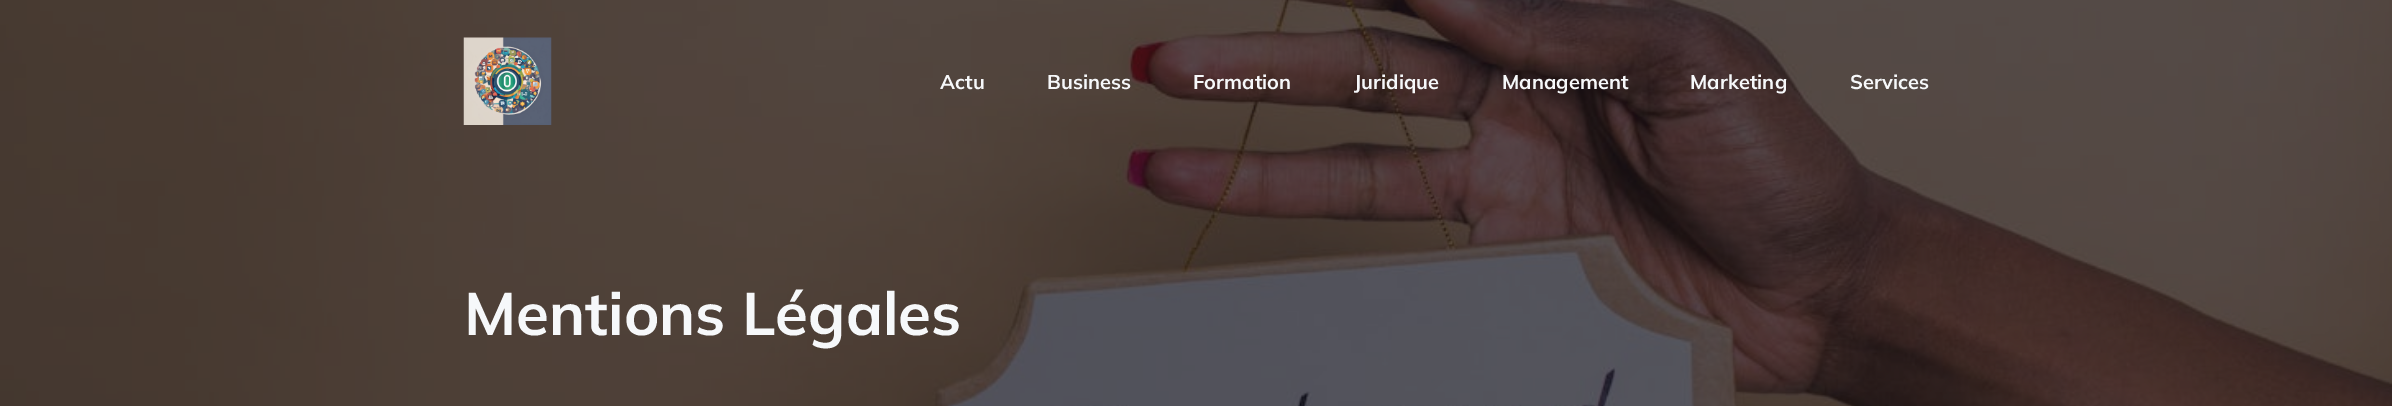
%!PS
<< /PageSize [2392 406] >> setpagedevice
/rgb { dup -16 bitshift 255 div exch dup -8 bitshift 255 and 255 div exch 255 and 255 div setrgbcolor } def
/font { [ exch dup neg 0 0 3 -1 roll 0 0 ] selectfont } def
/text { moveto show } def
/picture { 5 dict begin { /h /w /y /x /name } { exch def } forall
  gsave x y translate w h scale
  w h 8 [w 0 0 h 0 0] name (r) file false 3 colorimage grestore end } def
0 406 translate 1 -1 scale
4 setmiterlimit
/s1 { /Mulish-Bold 20 font 16#F6F8FA rgb } def
/s2 { /Mulish-Bold 60 font 16#F6F8FA rgb } def
16#FFFFFF rgb
0 0 2392 406 rectfill
(pic2.raw) 0 0 2392 406 picture
(pic1.raw) 463 37 89 88 picture
s1
(Actu) 940 89 text
(Business) 1047 89 text
(Formation) 1193 89 text
(Juridique) 1354 89 text
(Management) 1502 89 text
(Marketing) 1690 89 text
(Services) 1850 89 text
s2
(Mentions Légales) 464 335 text
showpage
